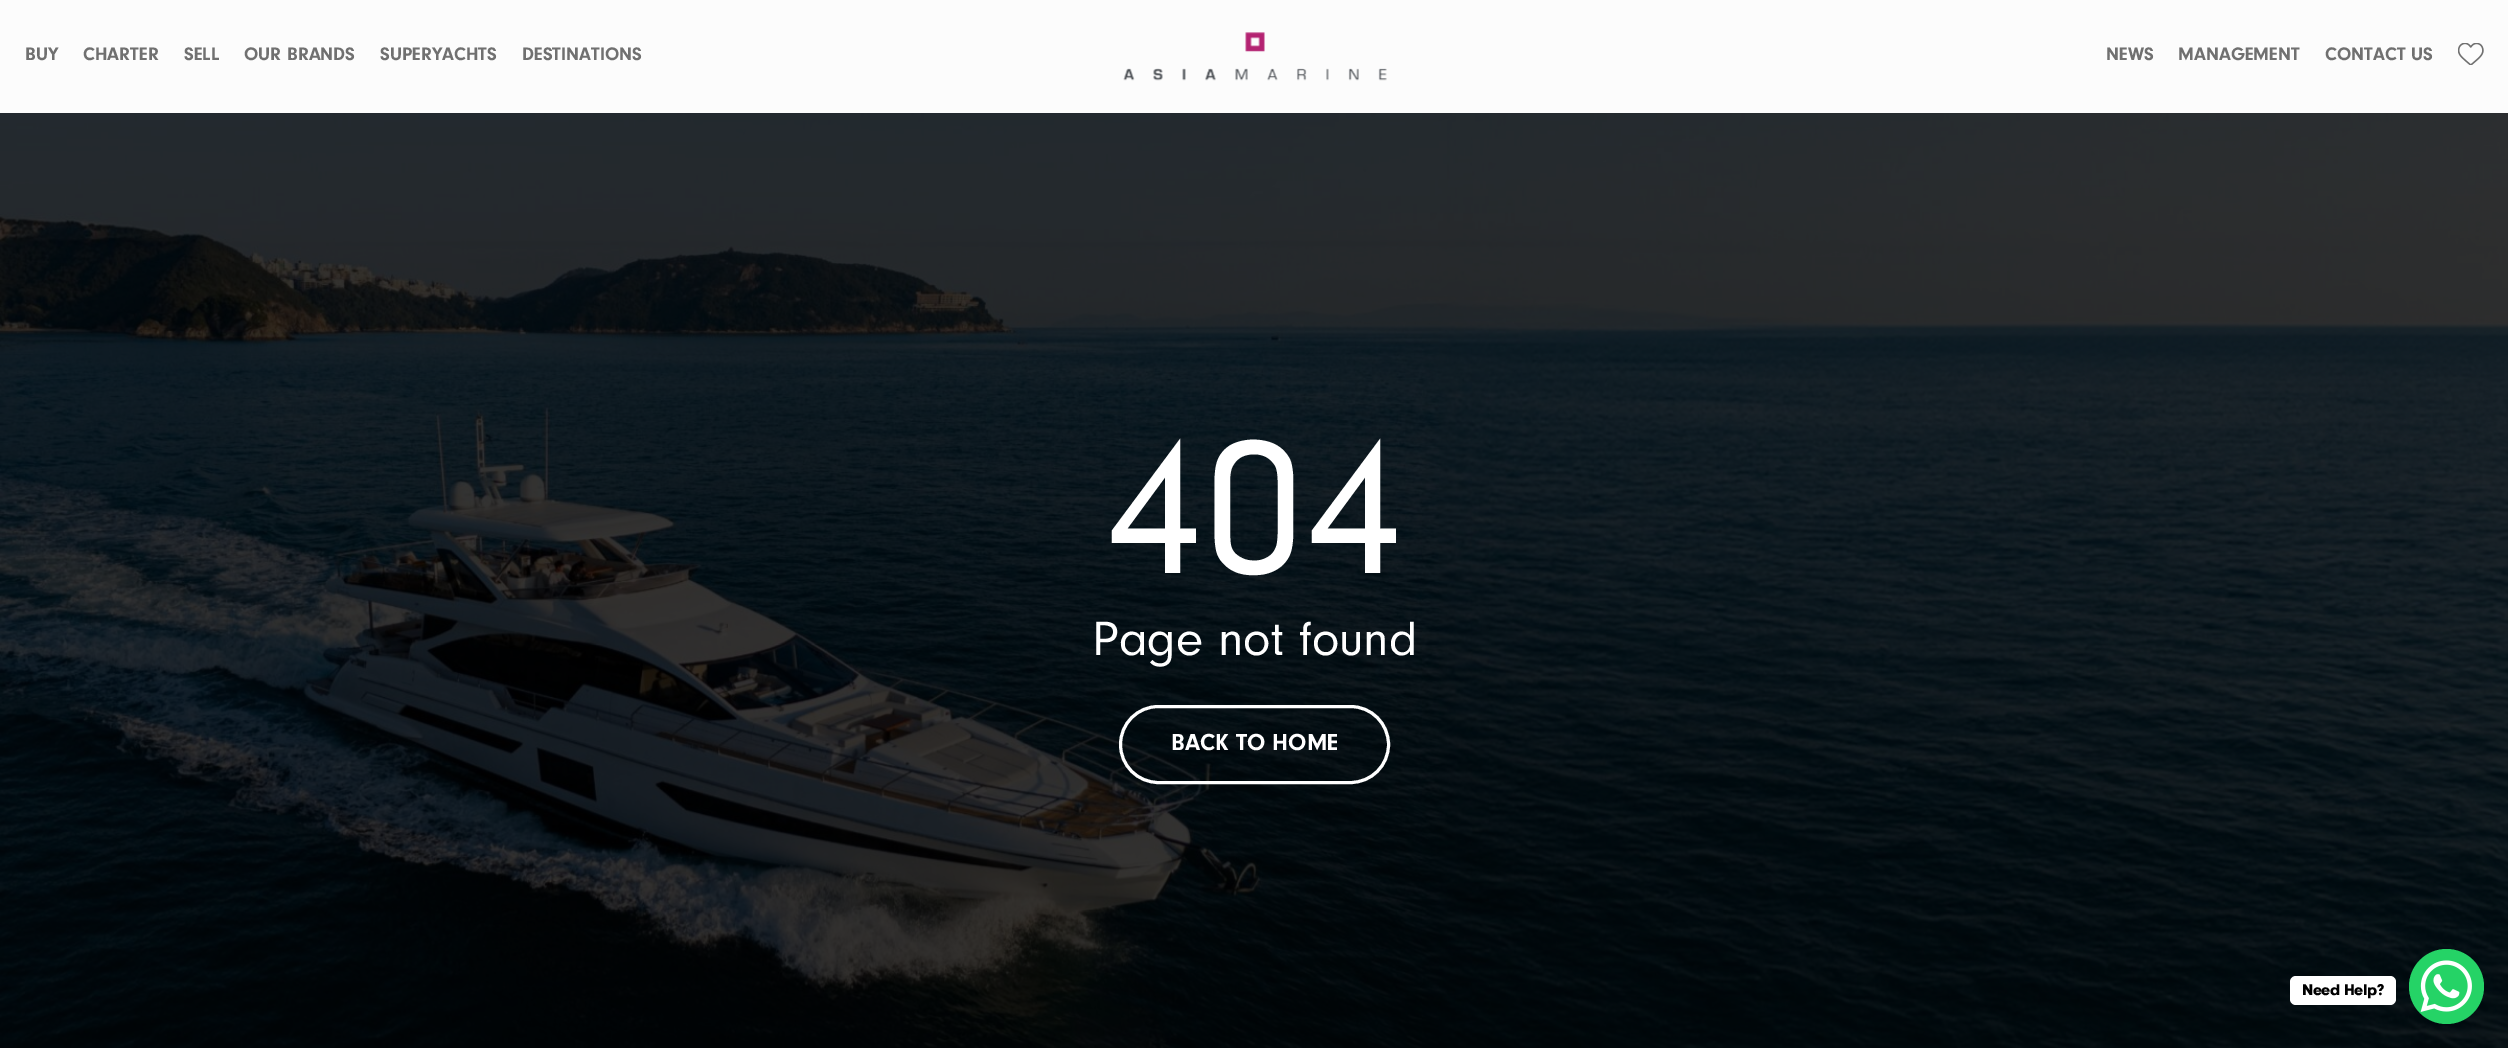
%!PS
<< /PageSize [2508 1048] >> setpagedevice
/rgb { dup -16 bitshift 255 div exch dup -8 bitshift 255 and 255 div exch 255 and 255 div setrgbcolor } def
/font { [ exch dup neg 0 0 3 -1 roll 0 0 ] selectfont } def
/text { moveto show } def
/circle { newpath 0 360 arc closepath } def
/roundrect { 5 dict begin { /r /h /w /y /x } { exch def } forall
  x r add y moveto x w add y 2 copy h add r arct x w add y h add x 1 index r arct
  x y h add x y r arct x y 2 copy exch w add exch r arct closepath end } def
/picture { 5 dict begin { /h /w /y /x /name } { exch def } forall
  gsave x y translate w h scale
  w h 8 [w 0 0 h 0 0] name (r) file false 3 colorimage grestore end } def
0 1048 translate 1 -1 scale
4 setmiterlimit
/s1 { /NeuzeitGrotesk-Bold 18.75 font 16#707070 rgb } def
/s2 { /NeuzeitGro-Regular 200 font 16#FFFFFF rgb } def
/s3 { /NeuzeitGro-Regular 50 font 16#FFFFFF rgb } def
/s4 { /NeuzeitGrotesk-Bold 24 font 16#FFFFFF rgb } def
16#FFFFFF rgb
0 0 2508 1048 rectfill
16#FCFCFC rgb
0 0 2508 113 rectfill
s1
(BUY) 25 60 text
(CHARTER) 83 60 text
(SELL) 184 60 text
(OUR BRANDS) 244 60 text
(SUPERYACHTS) 380 60 text
(DESTINATIONS) 522 60 text
(pic1.raw) 1123 32 264 49 picture
(NEWS) 2106 60 text
(MANAGEMENT) 2178 60 text
(CONTACT US) 2325 60 text
(pic2.raw) 2458 43 26 22 picture
(pic3.raw) 0 113 2508 935 picture
s2
(404) 1104 573 text
s3
(Page not found) 1092 655 text
3 setlinewidth
1120.5 706.5 268 76 38 roundrect stroke
s4
(BACK TO HOME) 1171 750 text
2290 976 106 29 6 roundrect fill
/NeuzeitGrotesk-Black 16.25 font
16#000000 rgb
2302 995 moveto -0.5 0 (Need Help?) ashow
16#25D366 rgb
2446.5 986.5 37.5 circle fill
(pic4.raw) 2420 960 52 52 picture
showpage
